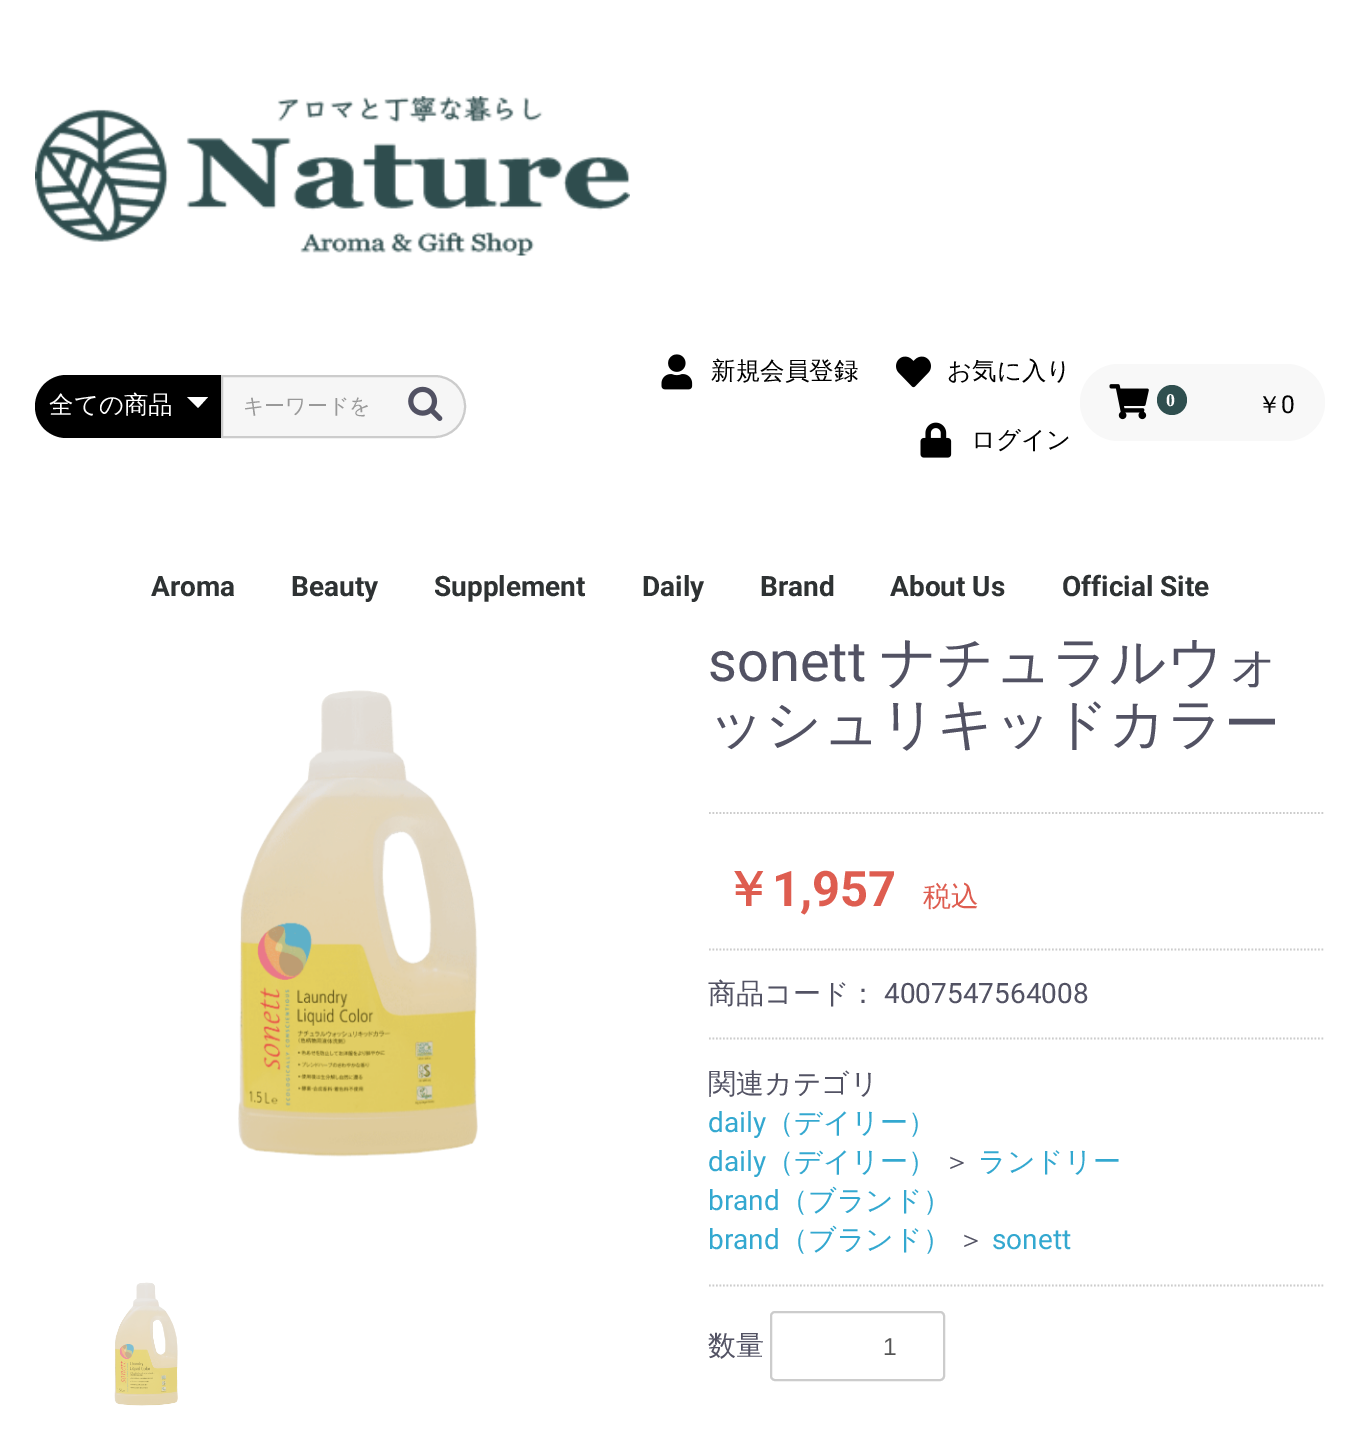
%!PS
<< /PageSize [1359 1431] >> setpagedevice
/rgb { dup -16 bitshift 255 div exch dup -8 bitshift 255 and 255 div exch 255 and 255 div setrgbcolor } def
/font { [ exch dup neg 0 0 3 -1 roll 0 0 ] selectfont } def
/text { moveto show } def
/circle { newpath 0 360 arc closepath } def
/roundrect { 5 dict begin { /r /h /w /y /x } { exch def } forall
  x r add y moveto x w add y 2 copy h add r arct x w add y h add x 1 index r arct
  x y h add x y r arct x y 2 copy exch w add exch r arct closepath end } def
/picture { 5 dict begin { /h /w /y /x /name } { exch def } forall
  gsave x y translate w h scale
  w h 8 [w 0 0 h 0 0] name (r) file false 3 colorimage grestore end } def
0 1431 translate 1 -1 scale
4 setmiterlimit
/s1 { /WenQuanYiZenHei-Medium 24.5 font 16#FFFFFF rgb } def
/s2 { /WenQuanYiZenHei-Medium 21 font 16#999999 rgb } def
/s3 { /WenQuanYiZenHei-Medium 24.5 font 16#000000 rgb } def
/s4 { /LiberationSerif-Bold 18 font 16#FFFFFF rgb } def
/s5 { /Roboto-Regular 24.5 font 16#000000 rgb } def
/s6 { /Roboto-Bold 28 font 16#2E3233 rgb } def
/s7 { /Roboto-Regular 56 font 16#525263 rgb } def
/s8 { /WenQuanYiZenHei-Medium 56 font 16#525263 rgb } def
/s9 { /WenQuanYiZenHei-Bold 49 font 16#DE5D50 rgb } def
/s10 { /Roboto-Bold 49 font 16#DE5D50 rgb } def
/s11 { /WenQuanYiZenHei-Medium 28 font 16#DE5D50 rgb } def
/s12 { /WenQuanYiZenHei-Medium 28 font 16#525263 rgb } def
/s13 { /Roboto-Regular 28 font 16#525263 rgb } def
/s14 { /Roboto-Regular 28 font 16#33A8D0 rgb } def
/s15 { /WenQuanYiZenHei-Medium 28 font 16#33A8D0 rgb } def
/s16 { /LiberationSans-Regular 24.5 font 16#555555 rgb } def
16#FFFFFF rgb
0 0 1359 1431 rectfill
(pic1.raw) 35 96 595 160 picture
16#000000 rgb
66.5 375 moveto 221 375 lineto 221 438 lineto 66.5 438 lineto 49 438 35 424 35 406.5 curveto 35 389 49 375 66.5 375 curveto closepath fill
s1
(全ての商品) 49 413 text
187 397 moveto 208 397 lineto 198 408 lineto closepath fill
16#F6F6F6 rgb
222 376 moveto 434.5 376 lineto 451.5 376 465 389.5 465 406.5 curveto 465 423.5 451.5 437 434.5 437 curveto 222 437 lineto closepath gsave fill grestore
16#CCCCCC rgb
2 setlinewidth
stroke
s2
(キーワードを) 243 413 text
(pic2.raw) 408 386 35 35 picture
(pic3.raw) 661 354 32 36 picture
s3
(新規会員登録) 711 379 text
(pic4.raw) 896 356 35 32 picture
(お気に入り) 947 379 text
(pic5.raw) 920 422 32 36 picture
(ログイン) 971 448 text
16#F8F8F8 rgb
1080 364 245 77 38.5 roundrect fill
(pic6.raw) 1109 384 40 36 picture
16#2F4F4F rgb
1172 400 15 circle fill
s4
(0) 1166 406 text
s3
(￥) 1257 413 text
s5
(0) 1281 413 text
s6
(Aroma) 151 596 text
(Beauty) 291 596 text
(Supplement) 434 596 text
(Daily) 642 596 text
(Brand) 760 596 text
(About Us) 890 596 text
(Official Site) 1062 596 text
(pic7.raw) 238 690 240 467 picture
(pic8.raw) 114 1282 64 124 picture
s7
(sonett) 708 681 text
s8
(ナチュラルウォ) 880 681 text
(ッシュリキッドカラー) 708 743 text
16#CCCCCC rgb
1.8 setlinewidth
[1.75 1.75] 0 setdash
709 813 moveto 1325 813 lineto stroke
709 949.5 moveto 1325 949.5 lineto stroke
s9
(￥) 723 906 text
s10
(1,957) 772 906 text
s11
(税込) 923 906 text
16#CCCCCC rgb
709 1038.5 moveto 1325 1038.5 lineto stroke
s12
(商品コード：) 708 1003 text
s13
(4007547564008) 884 1003 text
16#CCCCCC rgb
709 1285.5 moveto 1325 1285.5 lineto stroke
s12
(関連カテゴリ) 708 1093 text
s14
(daily) 708 1132 text
s15
(（デイリー）) 766 1132 text
s14
(daily) 708 1171 text
s15
(（デイリー）) 766 1171 text
s12
(＞) 943 1171 text
s15
(ランドリー) 978 1171 text
s14
(brand) 708 1210 text
s15
(（ブランド）) 780 1210 text
s14
(brand) 708 1249 text
s15
(（ブランド）) 780 1249 text
s12
(＞) 957 1249 text
s14
(sonett) 992 1249 text
s12
(数量) 708 1355 text
16#CCCCCC rgb
2 setlinewidth
[] 0 setdash
771 1312 173 68 4 roundrect stroke
s16
(1) 883 1355 text
showpage
